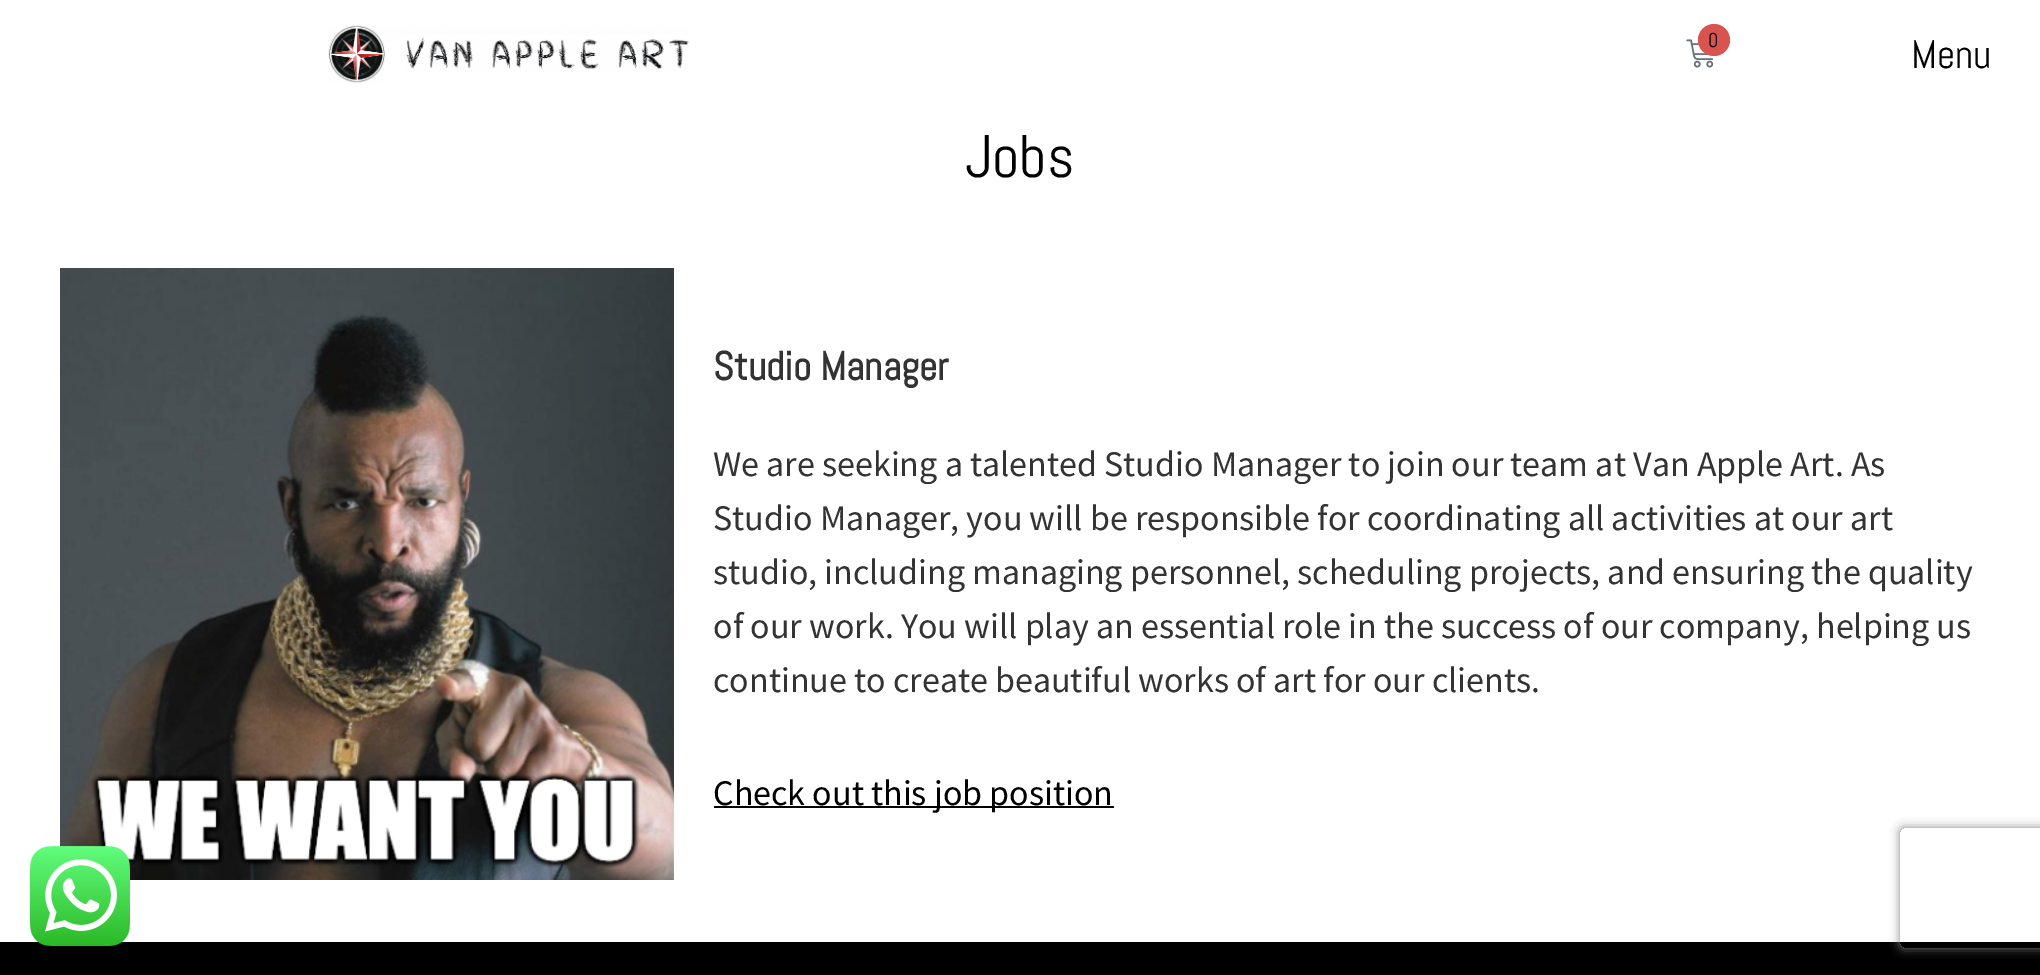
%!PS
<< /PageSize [2040 975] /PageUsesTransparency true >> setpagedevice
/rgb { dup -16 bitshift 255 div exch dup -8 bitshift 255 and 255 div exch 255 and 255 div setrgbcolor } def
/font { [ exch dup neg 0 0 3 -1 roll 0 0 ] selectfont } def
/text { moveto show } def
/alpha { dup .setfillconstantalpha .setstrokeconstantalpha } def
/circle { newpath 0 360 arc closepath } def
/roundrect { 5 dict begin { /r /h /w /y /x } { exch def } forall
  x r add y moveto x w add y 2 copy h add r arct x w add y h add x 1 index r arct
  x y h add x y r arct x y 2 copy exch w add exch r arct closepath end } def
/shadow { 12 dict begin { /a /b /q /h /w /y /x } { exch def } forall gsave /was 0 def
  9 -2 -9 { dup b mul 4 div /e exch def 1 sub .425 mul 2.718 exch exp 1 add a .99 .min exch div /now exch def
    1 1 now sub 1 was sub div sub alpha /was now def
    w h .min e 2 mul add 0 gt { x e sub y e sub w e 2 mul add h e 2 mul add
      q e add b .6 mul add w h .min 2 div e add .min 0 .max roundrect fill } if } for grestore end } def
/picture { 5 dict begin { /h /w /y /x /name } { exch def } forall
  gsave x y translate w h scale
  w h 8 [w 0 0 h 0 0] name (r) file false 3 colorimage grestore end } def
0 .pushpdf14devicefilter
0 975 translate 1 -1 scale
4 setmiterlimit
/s1 { /Abel-Regular 20 font 16#000000 rgb } def
/s2 { /Abel-Regular 40 font 16#000000 rgb } def
/s3 { /Abel-Regular 60 font 16#000000 rgb } def
/s4 { /Abel-Bold 40 font 16#333333 rgb } def
/s5 { /SourceSansPro-Regular 36 font 16#333333 rgb } def
/s6 { /SourceSansPro-Regular 36 font 16#000000 rgb } def
16#FFFFFF rgb
0 0 2040 975 rectfill
(pic1.raw) 328 25 362 58 picture
(pic2.raw) 1686 39 28 29 picture
16#D9534F rgb
1714 40 16 circle fill
s1
(0) 1708 47 text
s2
(Menu) 1911 68 text
s3
(Jobs) 965 177 text
(pic3.raw) 60 268 614 612 picture
s4
(Studio Manager) 713 380 text
s5
(We are seeking a talented Studio Manager to join our team at Van Apple Art. As) 713 476 text
(Studio Manager, you will be responsible for coordinating all activities at our art) 713 530 text
(studio, including managing personnel, scheduling projects, and ensuring the quality) 713 584 text
(of our work. You will play an essential role in the success of our company, helping us) 713 638 text
(continue to create beautiful works of art for our clients.) 713 692 text
16#000000 rgb
714 806 400 2 rectfill
(Check out this job position) 713 805 text
0 942 2040 33 rectfill
gsave
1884 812 moveto 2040 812 lineto 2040 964 lineto 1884 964 lineto closepath 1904 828 moveto 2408 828 lineto 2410 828 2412 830 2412 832 curveto 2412 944 lineto 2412 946 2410 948 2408 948 curveto 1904 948 lineto 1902 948 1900 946 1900 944 curveto 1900 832 lineto 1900 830 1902 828 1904 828 curveto closepath eoclip newpath
16#808080 rgb
1900 828 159 120 4 5 1 shadow
grestore
(pic4.raw) 30 846 100 100 picture
.poppdf14devicefilter showpage
